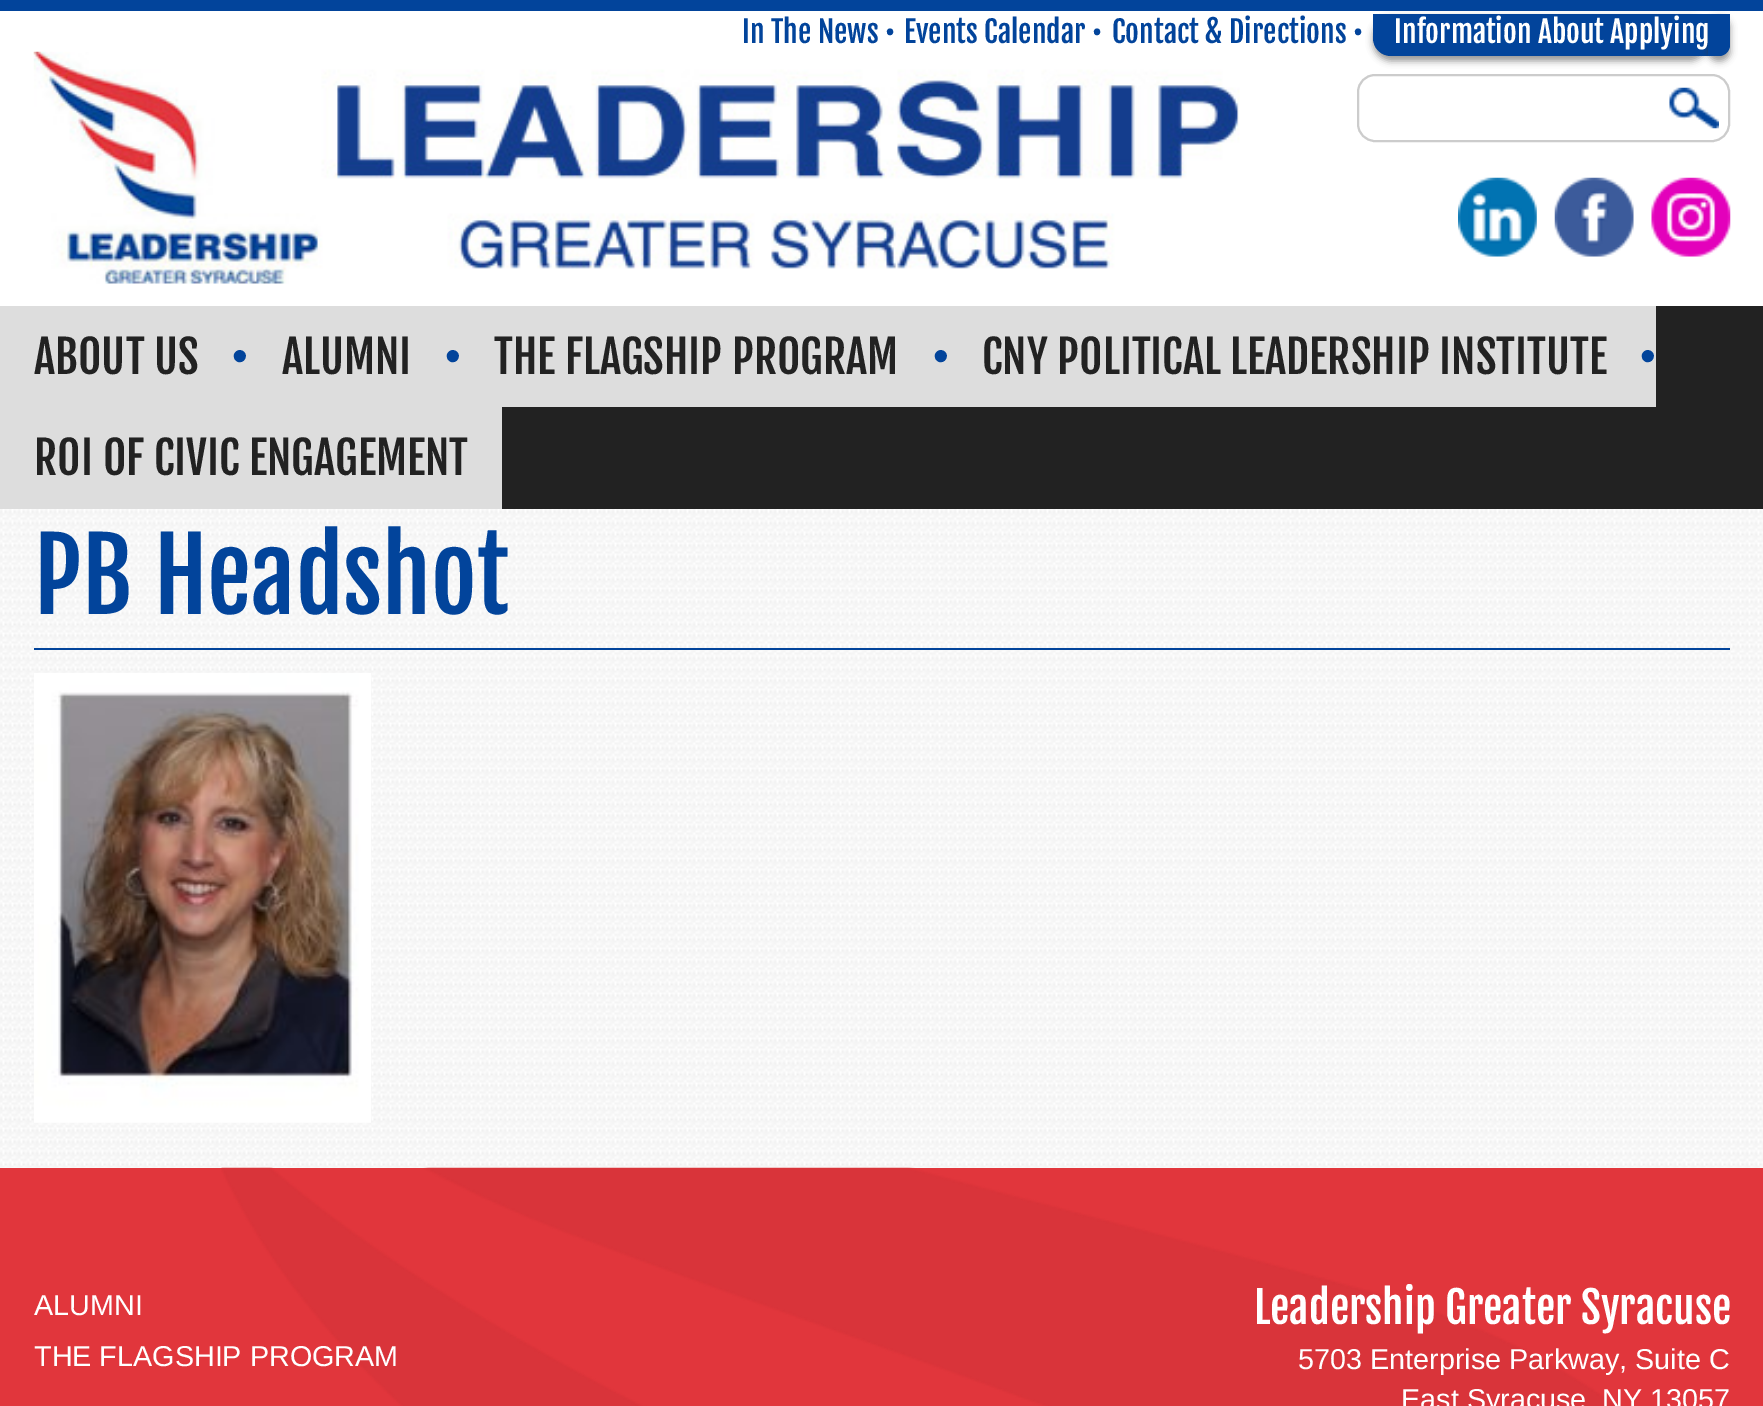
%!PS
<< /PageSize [1763 1406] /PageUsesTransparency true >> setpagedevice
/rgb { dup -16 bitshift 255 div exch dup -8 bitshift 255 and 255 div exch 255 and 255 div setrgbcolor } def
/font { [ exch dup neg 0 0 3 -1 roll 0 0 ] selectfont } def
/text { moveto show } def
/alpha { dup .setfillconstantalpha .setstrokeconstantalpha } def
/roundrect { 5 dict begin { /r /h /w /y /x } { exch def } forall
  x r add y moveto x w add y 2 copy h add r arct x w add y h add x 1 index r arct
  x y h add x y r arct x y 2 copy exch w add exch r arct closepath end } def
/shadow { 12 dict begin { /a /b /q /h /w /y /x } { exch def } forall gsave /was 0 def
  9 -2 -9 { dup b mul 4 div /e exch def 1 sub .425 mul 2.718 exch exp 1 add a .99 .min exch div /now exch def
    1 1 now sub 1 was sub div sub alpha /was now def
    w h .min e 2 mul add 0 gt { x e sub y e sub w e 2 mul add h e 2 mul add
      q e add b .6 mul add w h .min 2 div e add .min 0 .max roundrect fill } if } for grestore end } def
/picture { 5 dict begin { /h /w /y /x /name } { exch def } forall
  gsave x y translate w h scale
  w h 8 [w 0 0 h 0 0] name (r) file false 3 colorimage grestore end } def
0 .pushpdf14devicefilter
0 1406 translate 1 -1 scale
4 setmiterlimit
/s1 { /FjallaOne-Regular 29.75 font 16#02449B rgb } def
/s2 { /FjallaOne-Regular 29.75 font 16#FFFFFF rgb } def
/s3 { /FjallaOne-Regular 45 font 16#222222 rgb } def
/s4 { /LiberationSans-Regular 45 font 16#02449B rgb } def
/s5 { /FjallaOne-Regular 99 font 16#02449B rgb } def
/s6 { /LiberationSans-Regular 28.75 font 16#FFFFFF rgb } def
/s7 { /FjallaOne-Regular 43.25 font 16#FFFFFF rgb } def
16#FFFFFF rgb
0 0 1763 1406 rectfill
16#02449B rgb
0 0 1763 11 rectfill
s1
(In The News •) 742 43 text
(Events Calendar •) 904 43 text
(Contact & Directions •) 1112 43 text
16#323232 rgb
1373 18 335 43 18 3.5 0.5 shadow
16#02449B rgb
1373 14 moveto 1708 14 lineto 1708 56 lineto 1391 56 lineto 1381 56 1373 48 1373 38 curveto closepath fill
16#323232 rgb
1708 18 22 43 11 3.5 0.5 shadow
s2
(Information About Applying) 1394 43 text
16#02449B rgb
1708 14 moveto 1730 14 lineto 1730 45 lineto 1730 51 1725 56 1719 56 curveto 1708 56 lineto closepath fill
(pic1.raw) 33 51 1207 233 picture
16#CCCCCC rgb
2 setlinewidth
1358 75 371 66 17 roundrect stroke
(pic2.raw) 1669 87 50 42 picture
(pic3.raw) 1458 177 79 80 picture
(pic4.raw) 1554 177 80 80 picture
(pic5.raw) 1651 177 80 80 picture
16#222222 rgb
502 306 1261 203 rectfill
16#DDDDDD rgb
0 306 248 101 rectfill
s3
(ABOUT US) 34 374 text
s4
(•) 232 371 text
16#DDDDDD rgb
248 306 213 101 rectfill
s3
(ALUMNI) 282 374 text
s4
(•) 445 371 text
16#DDDDDD rgb
461 306 1195 101 rectfill
s3
(THE FLAGSHIP PROGRAM) 494 374 text
s4
(•) 933 371 text
s3
(CNY POLITICAL LEADERSHIP INSTITUTE) 982 374 text
s4
(•) 1640 371 text
16#DDDDDD rgb
0 407 502 102 rectfill
s3
(ROI OF CIVIC ENGAGEMENT) 34 475 text
(pic6.raw) 0 509 1763 659 picture
16#02449B rgb
34 648 1696 2 rectfill
s5
(PB Headshot) 34 614 text
(pic7.raw) 34 673 337 450 picture
16#E1363C rgb
0 1168 1763 238 rectfill
(pic8.raw) 221 1167 1395 239 picture
s6
(ALUMNI) 34 1315 text
(THE FLAGSHIP PROGRAM) 34 1366 text
s7
(Leadership Greater Syracuse) 1254 1324 text
s6
(5703 Enterprise Parkway, Suite C) 1298 1369 text
(East Syracuse, NY 13057) 1401 1409 text
.poppdf14devicefilter showpage
